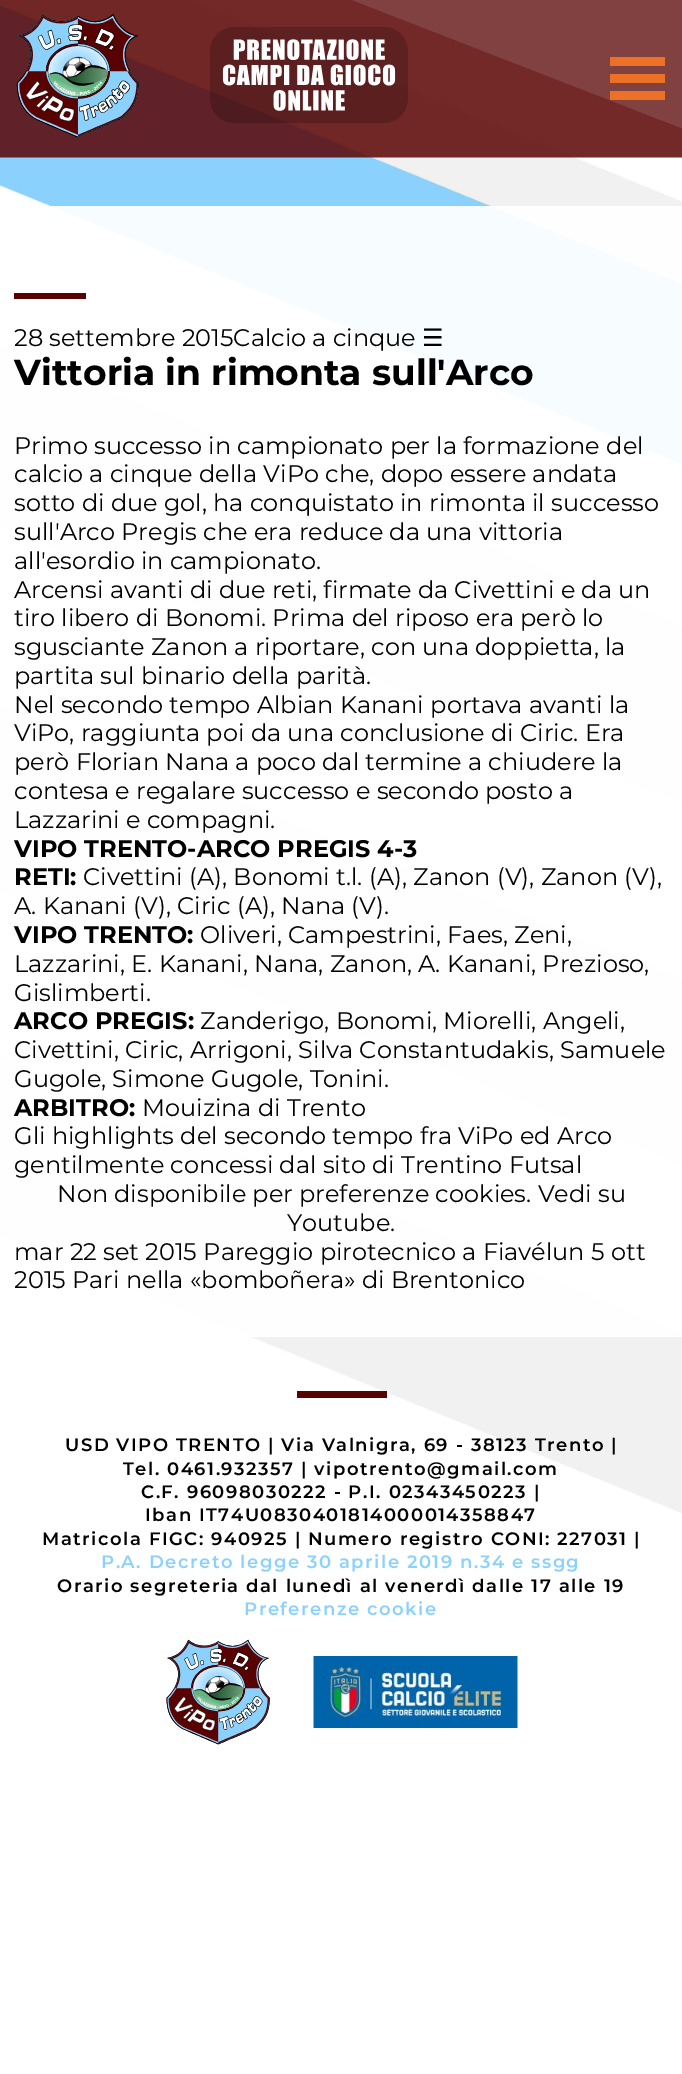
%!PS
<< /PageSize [682 2074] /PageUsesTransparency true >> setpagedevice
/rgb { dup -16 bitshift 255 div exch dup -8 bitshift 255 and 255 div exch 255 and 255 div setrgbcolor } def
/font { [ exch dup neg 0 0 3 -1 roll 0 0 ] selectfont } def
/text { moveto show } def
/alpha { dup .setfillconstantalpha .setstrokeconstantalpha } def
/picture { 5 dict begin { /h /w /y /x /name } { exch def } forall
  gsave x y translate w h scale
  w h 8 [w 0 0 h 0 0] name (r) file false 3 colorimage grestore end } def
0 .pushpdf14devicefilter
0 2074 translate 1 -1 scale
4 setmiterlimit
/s1 { /Montserrat-Thin 24 font 16#000000 rgb } def
/s2 { /DejaVuSans-Regular 24 font 16#000000 rgb } def
/s3 { /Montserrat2-Thin 36 font 16#000000 rgb } def
/s4 { /Montserrat2-Thin 24 font 16#000000 rgb } def
16#FFFFFF rgb
0 0 682 2074 rectfill
(pic1.raw) 0 0 682 1513 picture
(pic2.raw) 0 0 682 158 picture
(pic3.raw) 16 14 123 124 picture
(pic4.raw) 210 27 198 96 picture
16#EC7026 rgb
610 57 55 9 rectfill
610 74 55 9 rectfill
610 91 55 9 rectfill
0.93 alpha
16#FFFFFF rgb
0 206 682 1131 rectfill
1 alpha
16#580201 rgb
14 293 72 6 rectfill
s1
(28 settembre 2015Calcio a cinque) 14 346 text
s2
(☰) 422 346 text
s3
(Vittoria in rimonta sull'Arco) 14 385 text
s1
(Primo successo in campionato per la formazione del) 14 454 text
(calcio a cinque della ViPo che, dopo essere andata) 14 482 text
(sotto di due gol, ha conquistato in rimonta il successo) 14 511 text
(sull'Arco Pregis che era reduce da una vittoria) 14 540 text
(all'esordio in campionato.) 14 569 text
(Arcensi avanti di due reti, firmate da Civettini e da un) 14 598 text
(tiro libero di Bonomi. Prima del riposo era però lo) 14 626 text
(sgusciante Zanon a riportare, con una doppietta, la) 14 655 text
(partita sul binario della parità.) 14 684 text
(Nel secondo tempo Albian Kanani portava avanti la) 14 713 text
(ViPo, raggiunta poi da una conclusione di Ciric. Era) 14 741 text
(però Florian Nana a poco dal termine a chiudere la) 14 770 text
(contesa e regalare successo e secondo posto a) 14 799 text
(Lazzarini e compagni.) 14 828 text
s4
(VIPO TRENTO-ARCO PREGIS 4-3) 14 857 text
(RETI:) 14 885 text
s1
(Civettini \(A\), Bonomi t.l. \(A\), Zanon \(V\), Zanon \(V\),) 83 885 text
(A. Kanani \(V\), Ciric \(A\), Nana \(V\).) 14 914 text
s4
(VIPO TRENTO:) 14 943 text
s1
(Oliveri, Campestrini, Faes, Zeni,) 200 943 text
(Lazzarini, E. Kanani, Nana, Zanon, A. Kanani, Prezioso,) 14 972 text
(Gislimberti.) 14 1001 text
s4
(ARCO PREGIS:) 14 1029 text
s1
(Zanderigo, Bonomi, Miorelli, Angeli,) 200 1029 text
(Civettini, Ciric, Arrigoni, Silva Constantudakis, Samuele) 14 1058 text
(Gugole, Simone Gugole, Tonini.) 14 1087 text
s4
(ARBITRO:) 14 1116 text
s1
(Mouizina di Trento) 142 1116 text
(Gli highlights del secondo tempo fra ViPo ed Arco) 14 1144 text
(gentilmente concessi dal sito di Trentino Futsal) 14 1173 text
(Non disponibile per preferenze cookies. Vedi su) 57 1202 text
(Youtube.) 287 1231 text
(mar 22 set 2015 Pareggio pirotecnico a Fiavélun 5 ott) 14 1260 text
(2015 Pari nella «bomboñera» di Brentonico) 14 1288 text
16#580201 rgb
297 1391 90 7 rectfill
/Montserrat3-Thin 18 font
16#000000 rgb
65 1451 moveto 1.5 0 (USD VIPO TRENTO | Via Valnigra, 69 - 38123 Trento |) ashow
123 1475 moveto 1.5 0 (Tel. 0461.932357 | vipotrento@gmail.com) ashow
141 1498 moveto 1.5 0 (C.F. 96098030222 - P.I. 02343450223 |) ashow
145 1521 moveto 1.5 0 (Iban IT74U0830401814000014358847) ashow
42 1545 moveto 1.5 0 (Matricola FIGC: 940925 | Numero registro CONI: 227031 |) ashow
16#8AD1FD rgb
101 1568 moveto 1.5 0 (P.A. Decreto legge 30 aprile 2019 n.34 e ssgg) ashow
16#000000 rgb
57 1592 moveto 1.5 0 (Orario segreteria dal lunedì al venerdì dalle 17 alle 19) ashow
16#8AD1FD rgb
244 1615 moveto 1.5 0 (Preferenze cookie) ashow
(pic5.raw) 166 1639 104 106 picture
(pic6.raw) 313 1656 205 72 picture
.poppdf14devicefilter showpage
